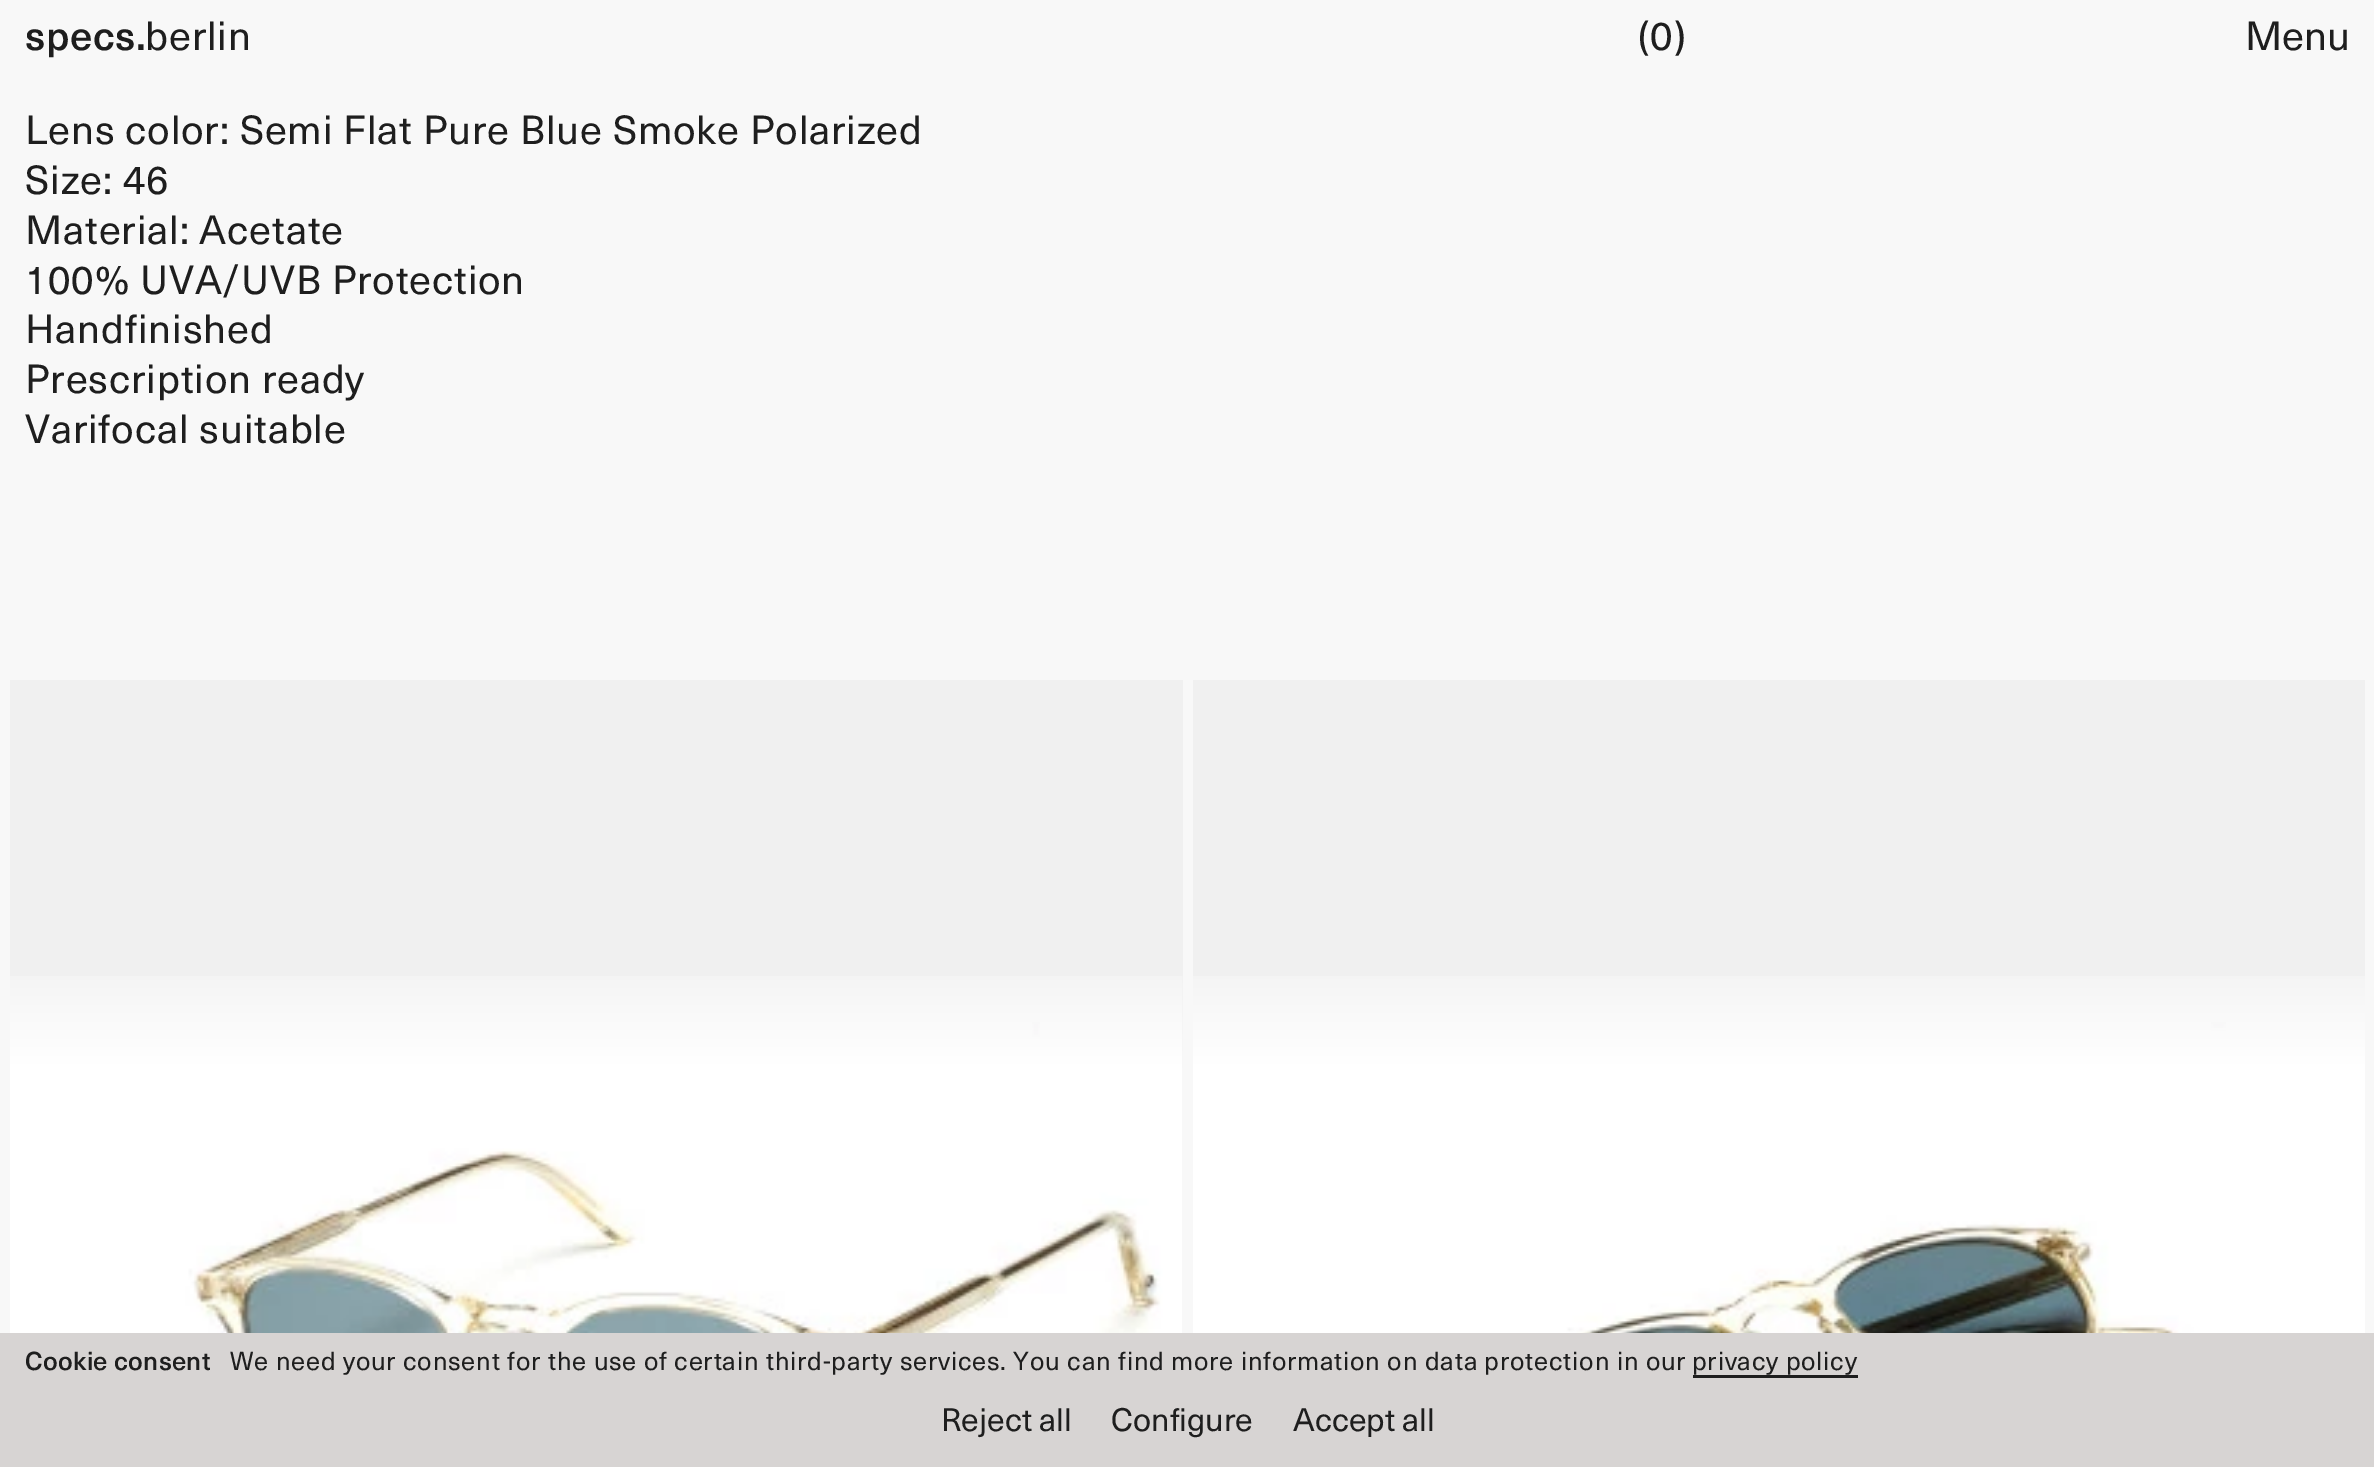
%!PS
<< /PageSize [2374 1467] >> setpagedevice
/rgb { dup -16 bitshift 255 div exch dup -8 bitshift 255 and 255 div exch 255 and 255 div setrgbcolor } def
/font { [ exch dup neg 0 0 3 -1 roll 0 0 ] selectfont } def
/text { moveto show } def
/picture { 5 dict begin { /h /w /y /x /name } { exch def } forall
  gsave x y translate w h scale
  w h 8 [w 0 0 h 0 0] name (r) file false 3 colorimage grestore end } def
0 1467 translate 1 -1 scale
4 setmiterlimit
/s1 { /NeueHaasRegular-Regular 39.9 font 16#1E1E1E rgb } def
/s2 { /NeueHaasRegular-Regular 32 font 16#1E1E1E rgb } def
16#F8F8F8 rgb
0 0 2374 1467 rectfill
/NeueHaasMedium-Regular 39.9 font
16#1E1E1E rgb
25 50 moveto 0.5 0 (specs.) ashow
/NeueHaasRegular-Regular 39.9 font
145 50 moveto 0.8 0 (berlin) ashow
1638 50 moveto 0.8 0 (\(0\)) ashow
(Menu) 2245 50 text
25 144 moveto 0.8 0 (Lens color: Semi Flat Pure Blue Smoke Polarized) ashow
25 194 moveto 0.8 0 (Size: 46) ashow
25 244 moveto 0.8 0 (Material: Acetate) ashow
25 294 moveto 0.8 0 (100% UVA/UVB Protection) ashow
25 343 moveto 0.8 0 (Handfinished) ashow
25 393 moveto 0.8 0 (Prescription ready) ashow
25 443 moveto 0.8 0 (Varifocal suitable) ashow
16#F0F0F0 rgb
10 680 1173 653 rectfill
(pic1.raw) 10 976 1173 357 picture
1193 680 1172 388 rectfill
(pic2.raw) 1193 976 1172 357 picture
16#D7D4D3 rgb
0 1333 2374 134 rectfill
/NeueHaasMedium-Regular 25.52 font
16#1E1E1E rgb
25 1370 moveto 0.25 0 (Cookie consent) ashow
/NeueHaasRegular-Regular 25.52 font
230 1370 moveto -0.1 0 32 0.8 0 (We need your consent for the use of certain third-party services. You can find more information on data protection in our) awidthshow
1692 1370 moveto 0.8 0 (privacy policy) ashow
1693 1375 165 3 rectfill
s2
(Reject all) 941 1431 text
(Configure) 1111 1431 text
(Accept all) 1293 1431 text
showpage
